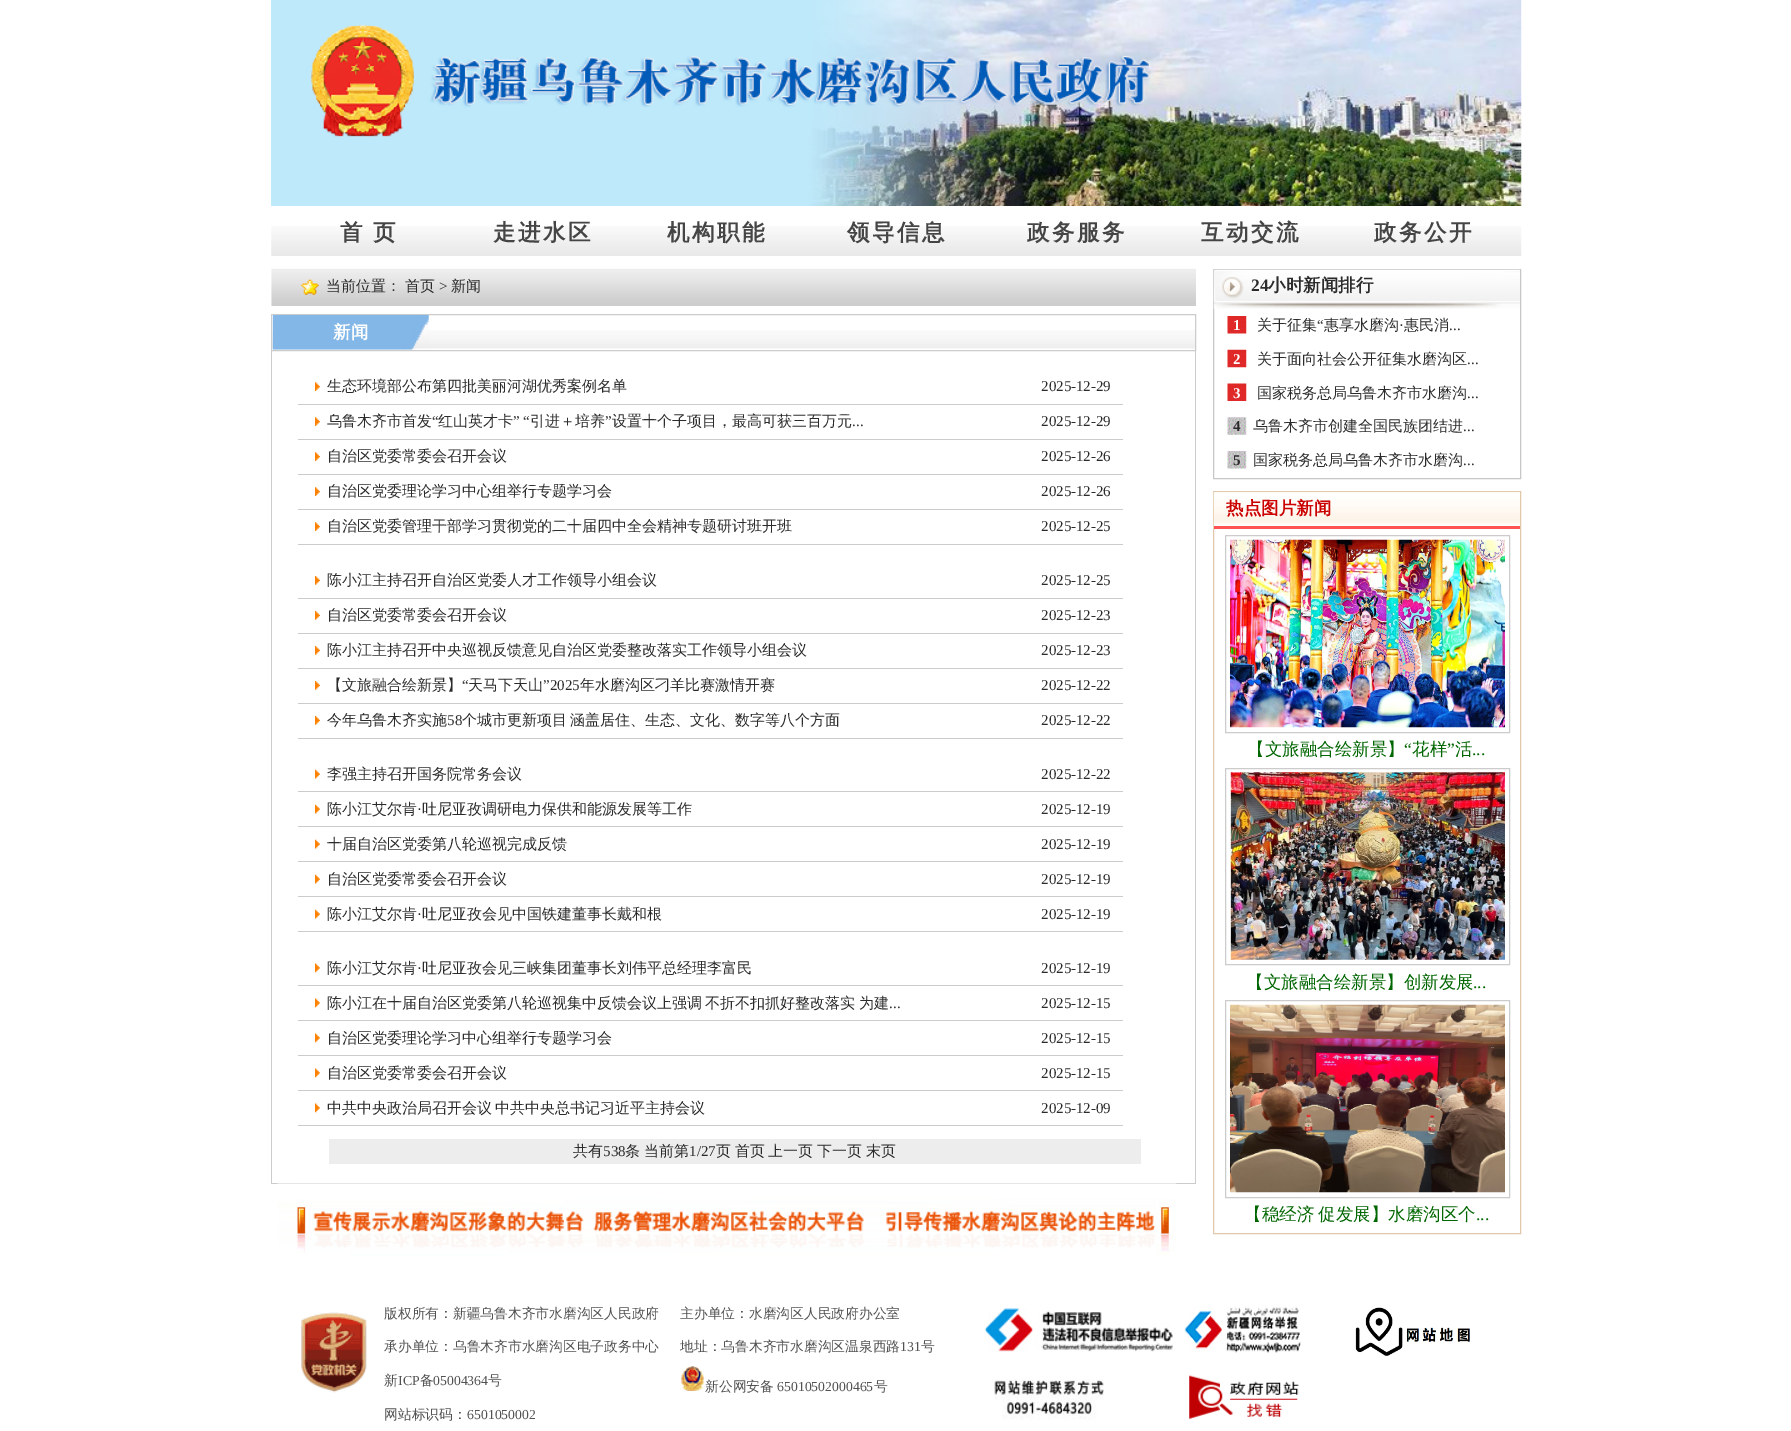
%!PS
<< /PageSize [1791 1431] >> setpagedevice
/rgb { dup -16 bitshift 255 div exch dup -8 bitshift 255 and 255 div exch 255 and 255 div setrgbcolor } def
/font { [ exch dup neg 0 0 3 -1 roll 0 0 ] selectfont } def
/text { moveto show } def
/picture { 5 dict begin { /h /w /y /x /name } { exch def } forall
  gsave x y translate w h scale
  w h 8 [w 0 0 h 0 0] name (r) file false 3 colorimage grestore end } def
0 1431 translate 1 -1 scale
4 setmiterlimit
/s1 { /WenQuanYiZenHei-Medium 15 font 16#2B2B2B rgb } def
/s2 { /LiberationSerif-Regular 15 font 16#2B2B2B rgb } def
/s3 { /WenQuanYiZenHei-Bold 17.5 font 16#FFFFFF rgb } def
/s4 { /LiberationSerif-Bold 17.5 font 16#2B2B2B rgb } def
/s5 { /WenQuanYiZenHei-Bold 17.5 font 16#2B2B2B rgb } def
/s6 { /LiberationSerif-Bold 15 font 16#FFFFFF rgb } def
/s7 { /LiberationSerif-Bold 15 font 16#2B2B2B rgb } def
/s8 { /WenQuanYiZenHei-Bold 17.5 font 16#CB0101 rgb } def
/s9 { /WenQuanYiZenHei-Medium 17.5 font 16#006600 rgb } def
/s10 { /LiberationSerif-Regular 17.5 font 16#006600 rgb } def
/s11 { /WenQuanYiZenHei-Medium 13.75 font 16#525252 rgb } def
/s12 { /LiberationSerif-Regular 13.75 font 16#525252 rgb } def
16#FFFFFF rgb
0 0 1791 1431 rectfill
(pic1.raw) 271 0 1251 206 picture
(pic2.raw) 271 226 1251 30 picture
/WenQuanYiZenHei-Bold 22.5 font
16#454545 rgb
340 240 moveto -1 0 32 2.5 0 (首 页) awidthshow
493 240 moveto 2.5 0 (走进水区) ashow
667 240 moveto 2.5 0 (机构职能) ashow
847 240 moveto 2.5 0 (领导信息) ashow
1027 240 moveto 2.5 0 (政务服务) ashow
1201 240 moveto 2.5 0 (互动交流) ashow
1374 240 moveto 2.5 0 (政务公开) ashow
(pic3.raw) 271 268 925 38 picture
(pic4.raw) 301 279 18 16 picture
s1
(当前位置：) 326 291 text
(首页) 405 291 text
s2
(>) 439 291 text
s1
(新闻) 451 291 text
(pic5.raw) 272 330 923 19 picture
16#CCCCCC rgb
271.5 314.5 924 36 rectstroke
(pic6.raw) 272 314 157 36 picture
s3
(新闻) 333 338 text
16#CCCCCC rgb
1195 351 1 833 rectfill
271 1183 925 1 rectfill
271 351 1 833 rectfill
(pic7.raw) 315 382 5 9 picture
s1
(生态环境部公布第四批美丽河湖优秀案例名单) 327 391 text
16#CCCCCC rgb
298 404 825 1 rectfill
s2
(2025-12-29) 1041 391 text
(pic7.raw) 315 417 5 9 picture
s1
(乌鲁木齐市首发) 327 426 text
s2
(“) 432 426 text
s1
(红山英才卡) 438 426 text
s2
(” “) 513 426 text
s1
(引进＋培养) 530 426 text
s2
(”) 605 426 text
s1
(设置十个子项目，最高可获三百万元) 612 426 text
s2
(...) 852 426 text
16#CCCCCC rgb
298 439 825 1 rectfill
s2
(2025-12-29) 1041 426 text
(pic7.raw) 315 452 5 9 picture
s1
(自治区党委常委会召开会议) 327 461 text
16#CCCCCC rgb
298 474 825 1 rectfill
s2
(2025-12-26) 1041 461 text
(pic7.raw) 315 487 5 9 picture
s1
(自治区党委理论学习中心组举行专题学习会) 327 496 text
16#CCCCCC rgb
298 509 825 1 rectfill
s2
(2025-12-26) 1041 496 text
(pic7.raw) 315 522 5 9 picture
s1
(自治区党委管理干部学习贯彻党的二十届四中全会精神专题研讨班开班) 327 531 text
16#CCCCCC rgb
298 544 825 1 rectfill
s2
(2025-12-25) 1041 531 text
(pic8.raw) 315 576 5 9 picture
s1
(陈小江主持召开自治区党委人才工作领导小组会议) 327 585 text
16#CCCCCC rgb
298 598 825 1 rectfill
s2
(2025-12-25) 1041 585 text
(pic8.raw) 315 611 5 9 picture
s1
(自治区党委常委会召开会议) 327 620 text
16#CCCCCC rgb
298 633 825 1 rectfill
s2
(2025-12-23) 1041 620 text
(pic8.raw) 315 646 5 9 picture
s1
(陈小江主持召开中央巡视反馈意见自治区党委整改落实工作领导小组会议) 327 655 text
16#CCCCCC rgb
298 668 825 1 rectfill
s2
(2025-12-23) 1041 655 text
(pic8.raw) 315 681 5 9 picture
s1
(【文旅融合绘新景】) 327 690 text
s2
(“) 462 690 text
s1
(天马下天山) 468 690 text
s2
(”2025) 543 690 text
s1
(年水磨沟区刁羊比赛激情开赛) 580 690 text
16#CCCCCC rgb
298 703 825 1 rectfill
s2
(2025-12-22) 1041 690 text
(pic9.raw) 315 716 5 9 picture
s1
(今年乌鲁木齐实施) 327 725 text
s2
(58) 447 725 text
/WenQuanYiZenHei-Medium 15 font
462 725 moveto -1 0 32 (个城市更新项目 涵盖居住、生态、文化、数字等八个方面) widthshow
16#CCCCCC rgb
298 738 825 1 rectfill
s2
(2025-12-22) 1041 725 text
(pic10.raw) 315 769 5 10 picture
s1
(李强主持召开国务院常务会议) 327 779 text
16#CCCCCC rgb
298 791 825 1 rectfill
s2
(2025-12-22) 1041 779 text
(pic10.raw) 315 804 5 10 picture
s1
(陈小江艾尔肯) 327 814 text
s2
(·) 417 814 text
s1
(吐尼亚孜调研电力保供和能源发展等工作) 422 814 text
16#CCCCCC rgb
298 826 825 1 rectfill
s2
(2025-12-19) 1041 814 text
(pic10.raw) 315 839 5 10 picture
s1
(十届自治区党委第八轮巡视完成反馈) 327 849 text
16#CCCCCC rgb
298 861 825 1 rectfill
s2
(2025-12-19) 1041 849 text
(pic10.raw) 315 874 5 10 picture
s1
(自治区党委常委会召开会议) 327 884 text
16#CCCCCC rgb
298 896 825 1 rectfill
s2
(2025-12-19) 1041 884 text
(pic10.raw) 315 909 5 10 picture
s1
(陈小江艾尔肯) 327 919 text
s2
(·) 417 919 text
s1
(吐尼亚孜会见中国铁建董事长戴和根) 422 919 text
16#CCCCCC rgb
298 931 825 1 rectfill
s2
(2025-12-19) 1041 919 text
(pic11.raw) 315 963 5 10 picture
s1
(陈小江艾尔肯) 327 973 text
s2
(·) 417 973 text
s1
(吐尼亚孜会见三峡集团董事长刘伟平总经理李富民) 422 973 text
16#CCCCCC rgb
298 985 825 1 rectfill
s2
(2025-12-19) 1041 973 text
(pic12.raw) 315 998 5 10 picture
/WenQuanYiZenHei-Medium 15 font
327 1008 moveto -1 0 32 (陈小江在十届自治区党委第八轮巡视集中反馈会议上强调 不折不扣抓好整改落实 为建) widthshow
s2
(...) 889 1008 text
16#CCCCCC rgb
298 1020 825 1 rectfill
s2
(2025-12-15) 1041 1008 text
(pic12.raw) 315 1033 5 10 picture
s1
(自治区党委理论学习中心组举行专题学习会) 327 1043 text
16#CCCCCC rgb
298 1055 825 1 rectfill
s2
(2025-12-15) 1041 1043 text
(pic12.raw) 315 1068 5 10 picture
s1
(自治区党委常委会召开会议) 327 1078 text
16#CCCCCC rgb
298 1090 825 1 rectfill
s2
(2025-12-15) 1041 1078 text
(pic12.raw) 315 1103 5 10 picture
/WenQuanYiZenHei-Medium 15 font
327 1113 moveto -1 0 32 (中共中央政治局召开会议 中共中央总书记习近平主持会议) widthshow
16#CCCCCC rgb
298 1125 825 1 rectfill
s2
(2025-12-09) 1041 1113 text
16#EDEDED rgb
329 1139 812 25 rectfill
s1
(共有) 573 1156 text
s2
(538) 603 1156 text
s1
(条) 625 1156 text
(当前第) 644 1156 text
s2
(1/27) 689 1156 text
s1
(页) 716 1156 text
(首页) 735 1156 text
(上一页) 768 1156 text
(下一页) 817 1156 text
(末页) 866 1156 text
(pic13.raw) 277 1183 900 73 picture
16#C7C7C7 rgb
1213.5 269.5 307 209 rectstroke
(pic14.raw) 1213 269 307 40 picture
s4
(24) 1251 291 text
s5
(小时新闻排行) 1268 291 text
(pic15.raw) 1227 316 20 18 picture
s1
(关于征集) 1257 330 text
(惠享水磨沟) 1324 330 text
(惠民消) 1404 330 text
s6
(1) 1233 330 text
s2
(“) 1317 330 text
(·) 1399 330 text
(...) 1449 330 text
(pic16.raw) 1227 349 20 19 picture
s1
(关于面向社会公开征集水磨沟区) 1257 364 text
s6
(2) 1233 364 text
s2
(...) 1467 364 text
(pic17.raw) 1227 383 20 18 picture
s1
(国家税务总局乌鲁木齐市水磨沟) 1257 398 text
s6
(3) 1233 398 text
s2
(...) 1467 398 text
(pic18.raw) 1227 417 20 18 picture
s1
(乌鲁木齐市创建全国民族团结进) 1253 431 text
s7
(4) 1233 431 text
s2
(...) 1463 431 text
(pic19.raw) 1227 451 20 18 picture
s1
(国家税务总局乌鲁木齐市水磨沟) 1253 465 text
s7
(5) 1233 465 text
s2
(...) 1463 465 text
16#E1C8AA rgb
1213.5 491.5 307 742 rectstroke
(pic20.raw) 1213 492 307 37 picture
16#FF5253 rgb
1214 526 306 3 rectfill
s8
(热点图片新闻) 1226 514 text
16#CCCCCC rgb
1225.5 535.5 284 197 rectstroke
(pic21.raw) 1230 539 275 189 picture
s9
(【文旅融合绘新景】) 1247 755 text
s10
(“) 1404 755 text
s9
(花样) 1412 755 text
s10
(”) 1447 755 text
s9
(活) 1455 755 text
s10
(...) 1472 755 text
16#CCCCCC rgb
1225.5 768.5 284 196 rectstroke
(pic22.raw) 1230 772 275 188 picture
s9
(【文旅融合绘新景】创新发展) 1246 988 text
s10
(...) 1473 988 text
16#CCCCCC rgb
1225.5 1000.5 284 197 rectstroke
(pic23.raw) 1230 1004 275 189 picture
/WenQuanYiZenHei-Medium 17.5 font
16#006600 rgb
1244 1220 moveto -1 0 32 (【稳经济 促发展】水磨沟区个) widthshow
s10
(...) 1476 1220 text
(pic24.raw) 301 1312 66 81 picture
s11
(版权所有：新疆乌鲁木齐市水磨沟区人民政府) 384 1318 text
(主办单位：水磨沟区人民政府办公室) 680 1318 text
(承办单位：乌鲁木齐市水磨沟区电子政务中心) 384 1351 text
(地址：乌鲁木齐市水磨沟区温泉西路) 680 1351 text
s12
(131) 900 1351 text
s11
(号) 921 1351 text
(新) 384 1385 text
s12
(ICP) 398 1385 text
s11
(备) 420 1385 text
s12
(05004364) 433 1385 text
s11
(号) 488 1385 text
(pic25.raw) 681 1366 23 25 picture
(新公网安备) 705 1391 text
s12
(65010502000465) 777 1391 text
s11
(号) 874 1391 text
(网站标识码：) 384 1419 text
s12
(6501050002) 467 1419 text
(pic26.raw) 984 1308 189 44 picture
(pic27.raw) 1184 1307 117 46 picture
(pic28.raw) 1355 1307 115 49 picture
(pic29.raw) 994 1379 110 41 picture
(pic30.raw) 1189 1375 110 44 picture
showpage
